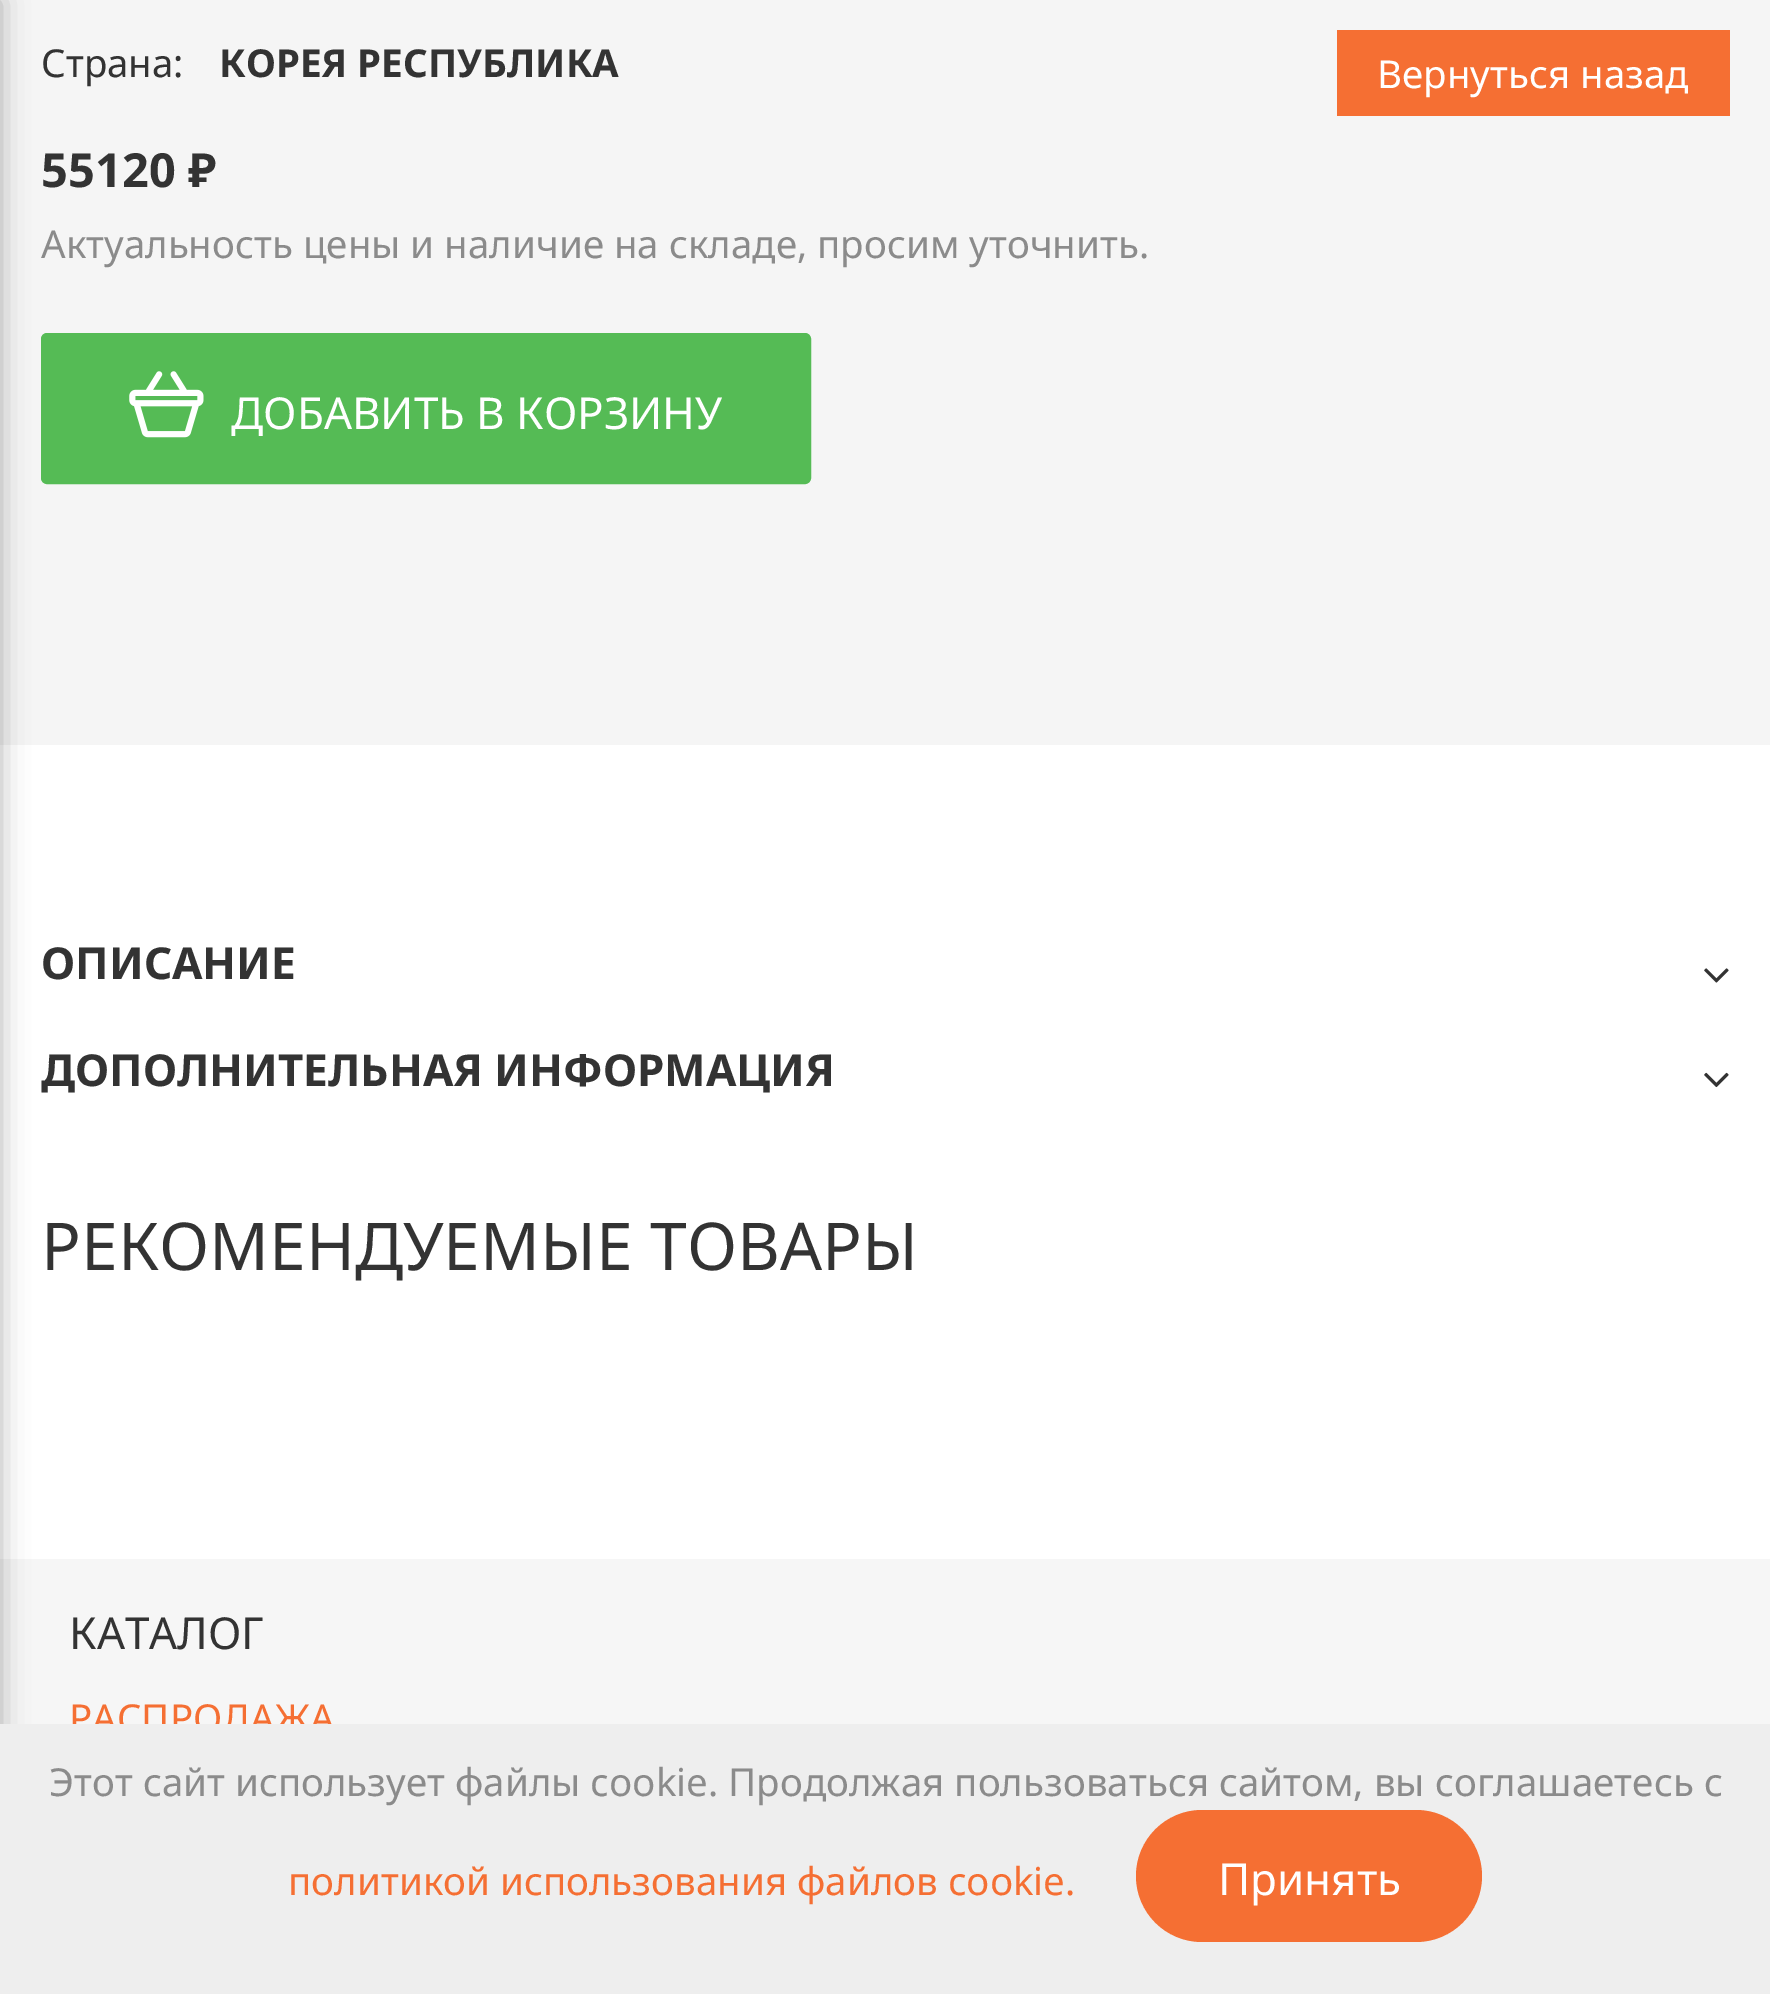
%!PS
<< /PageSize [1770 1994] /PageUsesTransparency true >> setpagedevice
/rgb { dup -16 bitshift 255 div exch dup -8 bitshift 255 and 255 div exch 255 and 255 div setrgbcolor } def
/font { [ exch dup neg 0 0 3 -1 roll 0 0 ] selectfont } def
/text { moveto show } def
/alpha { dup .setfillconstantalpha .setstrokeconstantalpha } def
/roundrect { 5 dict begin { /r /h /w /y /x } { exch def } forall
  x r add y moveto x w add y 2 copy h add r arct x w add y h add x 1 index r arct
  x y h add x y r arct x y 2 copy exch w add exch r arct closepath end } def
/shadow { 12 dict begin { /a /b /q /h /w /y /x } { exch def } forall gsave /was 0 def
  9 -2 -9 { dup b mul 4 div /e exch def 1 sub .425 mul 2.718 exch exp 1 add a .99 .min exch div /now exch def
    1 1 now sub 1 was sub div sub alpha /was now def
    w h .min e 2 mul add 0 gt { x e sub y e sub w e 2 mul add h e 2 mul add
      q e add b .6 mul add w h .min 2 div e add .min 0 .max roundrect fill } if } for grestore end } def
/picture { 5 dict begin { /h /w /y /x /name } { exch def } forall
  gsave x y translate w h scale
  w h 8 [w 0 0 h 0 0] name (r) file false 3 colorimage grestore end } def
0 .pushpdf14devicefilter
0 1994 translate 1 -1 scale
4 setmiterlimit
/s1 { /NotoSans-Regular 38.5 font 16#333333 rgb } def
/s2 { /NotoSans-Bold 38.5 font 16#333333 rgb } def
/s3 { /NotoSans-Bold 47 font 16#333333 rgb } def
/s4 { /NotoSans-Regular 38.5 font 16#8B8B8B rgb } def
/s5 { /NotoSans-Regular 38.5 font 16#FFFFFF rgb } def
/s6 { /NotoSans-Regular 44 font 16#FFFFFF rgb } def
/s7 { /NotoSans-Bold 44 font 16#333333 rgb } def
/s8 { /NotoSans-Regular 66 font 16#333333 rgb } def
/s9 { /NotoSans-Regular 44 font 16#333333 rgb } def
/s10 { /NotoSans-Regular 38.5 font 16#F56F33 rgb } def
16#FFFFFF rgb
0 0 1770 1994 rectfill
16#F5F5F5 rgb
0 0 1770 745 rectfill
16#55BB55 rgb
44 336 764 145 3 roundrect gsave fill grestore
6 setlinewidth
stroke
16#F6F6F6 rgb
0 1559 1770 165 rectfill
16#000000 rgb
-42 0 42 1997 0 14 0.3 shadow
s1
(Страна:) 41 77 text
s2
(КОРЕЯ РЕСПУБЛИКА) 219 77 text
s3
(55120 ₽) 41 187 text
s4
(Актуальность цены и наличие на складе, просим уточнить.) 41 258 text
16#F56F33 rgb
1337 30 393 86 rectfill
s5
(Вернуться назад) 1377 88 text
(pic1.raw) 129 371 75 67 picture
s6
(ДОБАВИТЬ В КОРЗИНУ) 231 429 text
s7
(ОПИСАНИЕ) 41 979 text
(pic2.raw) 1704 968 25 15 picture
(ДОПОЛНИТЕЛЬНАЯ ИНФОРМАЦИЯ) 41 1086 text
(pic3.raw) 1704 1072 25 16 picture
s8
(РЕКОМЕНДУЕМЫЕ ТОВАРЫ) 41 1270 text
s9
(КАТАЛОГ) 69 1649 text
s10
(РАСПРОДАЖА) 69 1732 text
16#EEEEEE rgb
0 1724 1770 270 rectfill
s4
(Этот сайт использует файлы cookie. Продолжая пользоваться сайтом, вы соглашаетесь с) 49 1796 text
s10
(политикой использования файлов cookie.) 288 1895 text
1136 1810 346 132 66 roundrect fill
s6
(Принять) 1218 1895 text
.poppdf14devicefilter showpage
